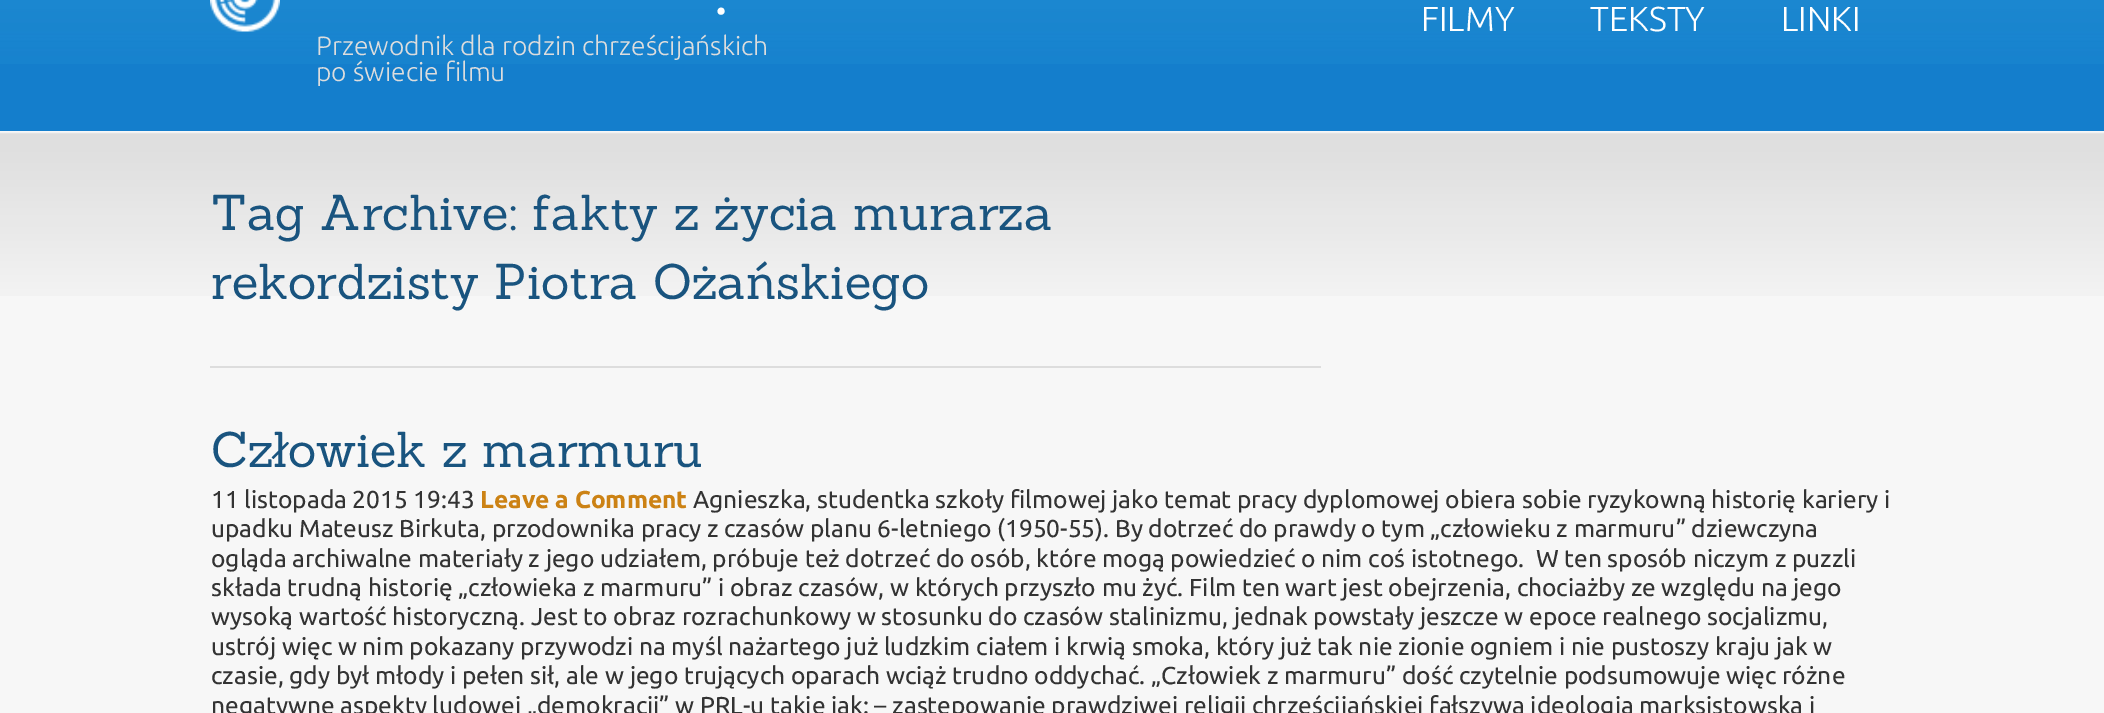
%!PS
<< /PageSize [2104 713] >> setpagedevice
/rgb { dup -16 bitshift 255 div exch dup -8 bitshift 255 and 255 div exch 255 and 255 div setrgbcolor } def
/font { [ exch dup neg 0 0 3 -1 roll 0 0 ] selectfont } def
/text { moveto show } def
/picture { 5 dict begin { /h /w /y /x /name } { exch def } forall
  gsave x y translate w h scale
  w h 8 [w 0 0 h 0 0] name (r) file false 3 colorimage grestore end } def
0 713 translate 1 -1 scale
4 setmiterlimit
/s1 { /Ubuntu-Light 66 font 16#FFFFFF rgb } def
/s2 { /Ubuntu-Light 26.5 font 16#DDDDDD rgb } def
/s3 { /Ubuntu-Light 34.5 font 16#FFFFFF rgb } def
/s4 { /Sanchez-Regular 49 font 16#19547F rgb } def
/s5 { /Ubuntu-Regular 24.5 font 16#333333 rgb } def
/s6 { /Ubuntu-Bold 24.5 font 16#CC8214 rgb } def
16#F7F7F7 rgb
0 0 2104 713 rectfill
16#147ECC rgb
0 64 2104 67 rectfill
(pic1.raw) 0 0 2104 64 picture
(pic2.raw) 210 0 70 32 picture
s1
(.) 713 14 text
s2
(Przewodnik dla rodzin chrześcijańskich) 316 55 text
(po świecie filmu) 316 81 text
s3
(FILMY) 1421 31 text
(TEKSTY) 1590 31 text
(LINKI) 1781 31 text
(pic3.raw) 0 132 2104 164 picture
16#DDDDDD rgb
210 366 1111 2 rectfill
s4
(Tag Archive: fakty z życia murarza) 211 230 text
(rekordzisty Piotra Ożańskiego) 211 299 text
(Człowiek z marmuru) 211 467 text
s5
(11 listopada 2015 19:43) 211 508 text
s6
(Leave a Comment) 480 508 text
s5
(Agnieszka, studentka szkoły filmowej jako temat pracy dyplomowej obiera sobie ryzykowną historię kariery i) 693 508 text
(upadku Mateusz Birkuta, przodownika pracy z czasów planu 6-letniego \(1950-55\). By dotrzeć do prawdy o tym „człowieku z marmuru” dziewczyna) 211 537 text
(ogląda archiwalne materiały z jego udziałem, próbuje też dotrzeć do osób, które mogą powiedzieć o nim coś istotnego.  W ten sposób niczym z puzzli) 211 567 text
(składa trudną historię „człowieka z marmuru” i obraz czasów, w których przyszło mu żyć. Film ten wart jest obejrzenia, chociażby ze względu na jego) 211 596 text
(wysoką wartość historyczną. Jest to obraz rozrachunkowy w stosunku do czasów stalinizmu, jednak powstały jeszcze w epoce realnego socjalizmu,) 211 625 text
(ustrój więc w nim pokazany przywodzi na myśl nażartego już ludzkim ciałem i krwią smoka, który już tak nie zionie ogniem i nie pustoszy kraju jak w) 211 655 text
(czasie, gdy był młody i pełen sił, ale w jego trujących oparach wciąż trudno oddychać. „Człowiek z marmuru” dość czytelnie podsumowuje więc różne) 211 684 text
(negatywne aspekty ludowej „demokracji” w PRL-u takie jak: – zastępowanie prawdziwej religii chrześcijańskiej fałszywą ideologią marksistowską i) 211 714 text
showpage
